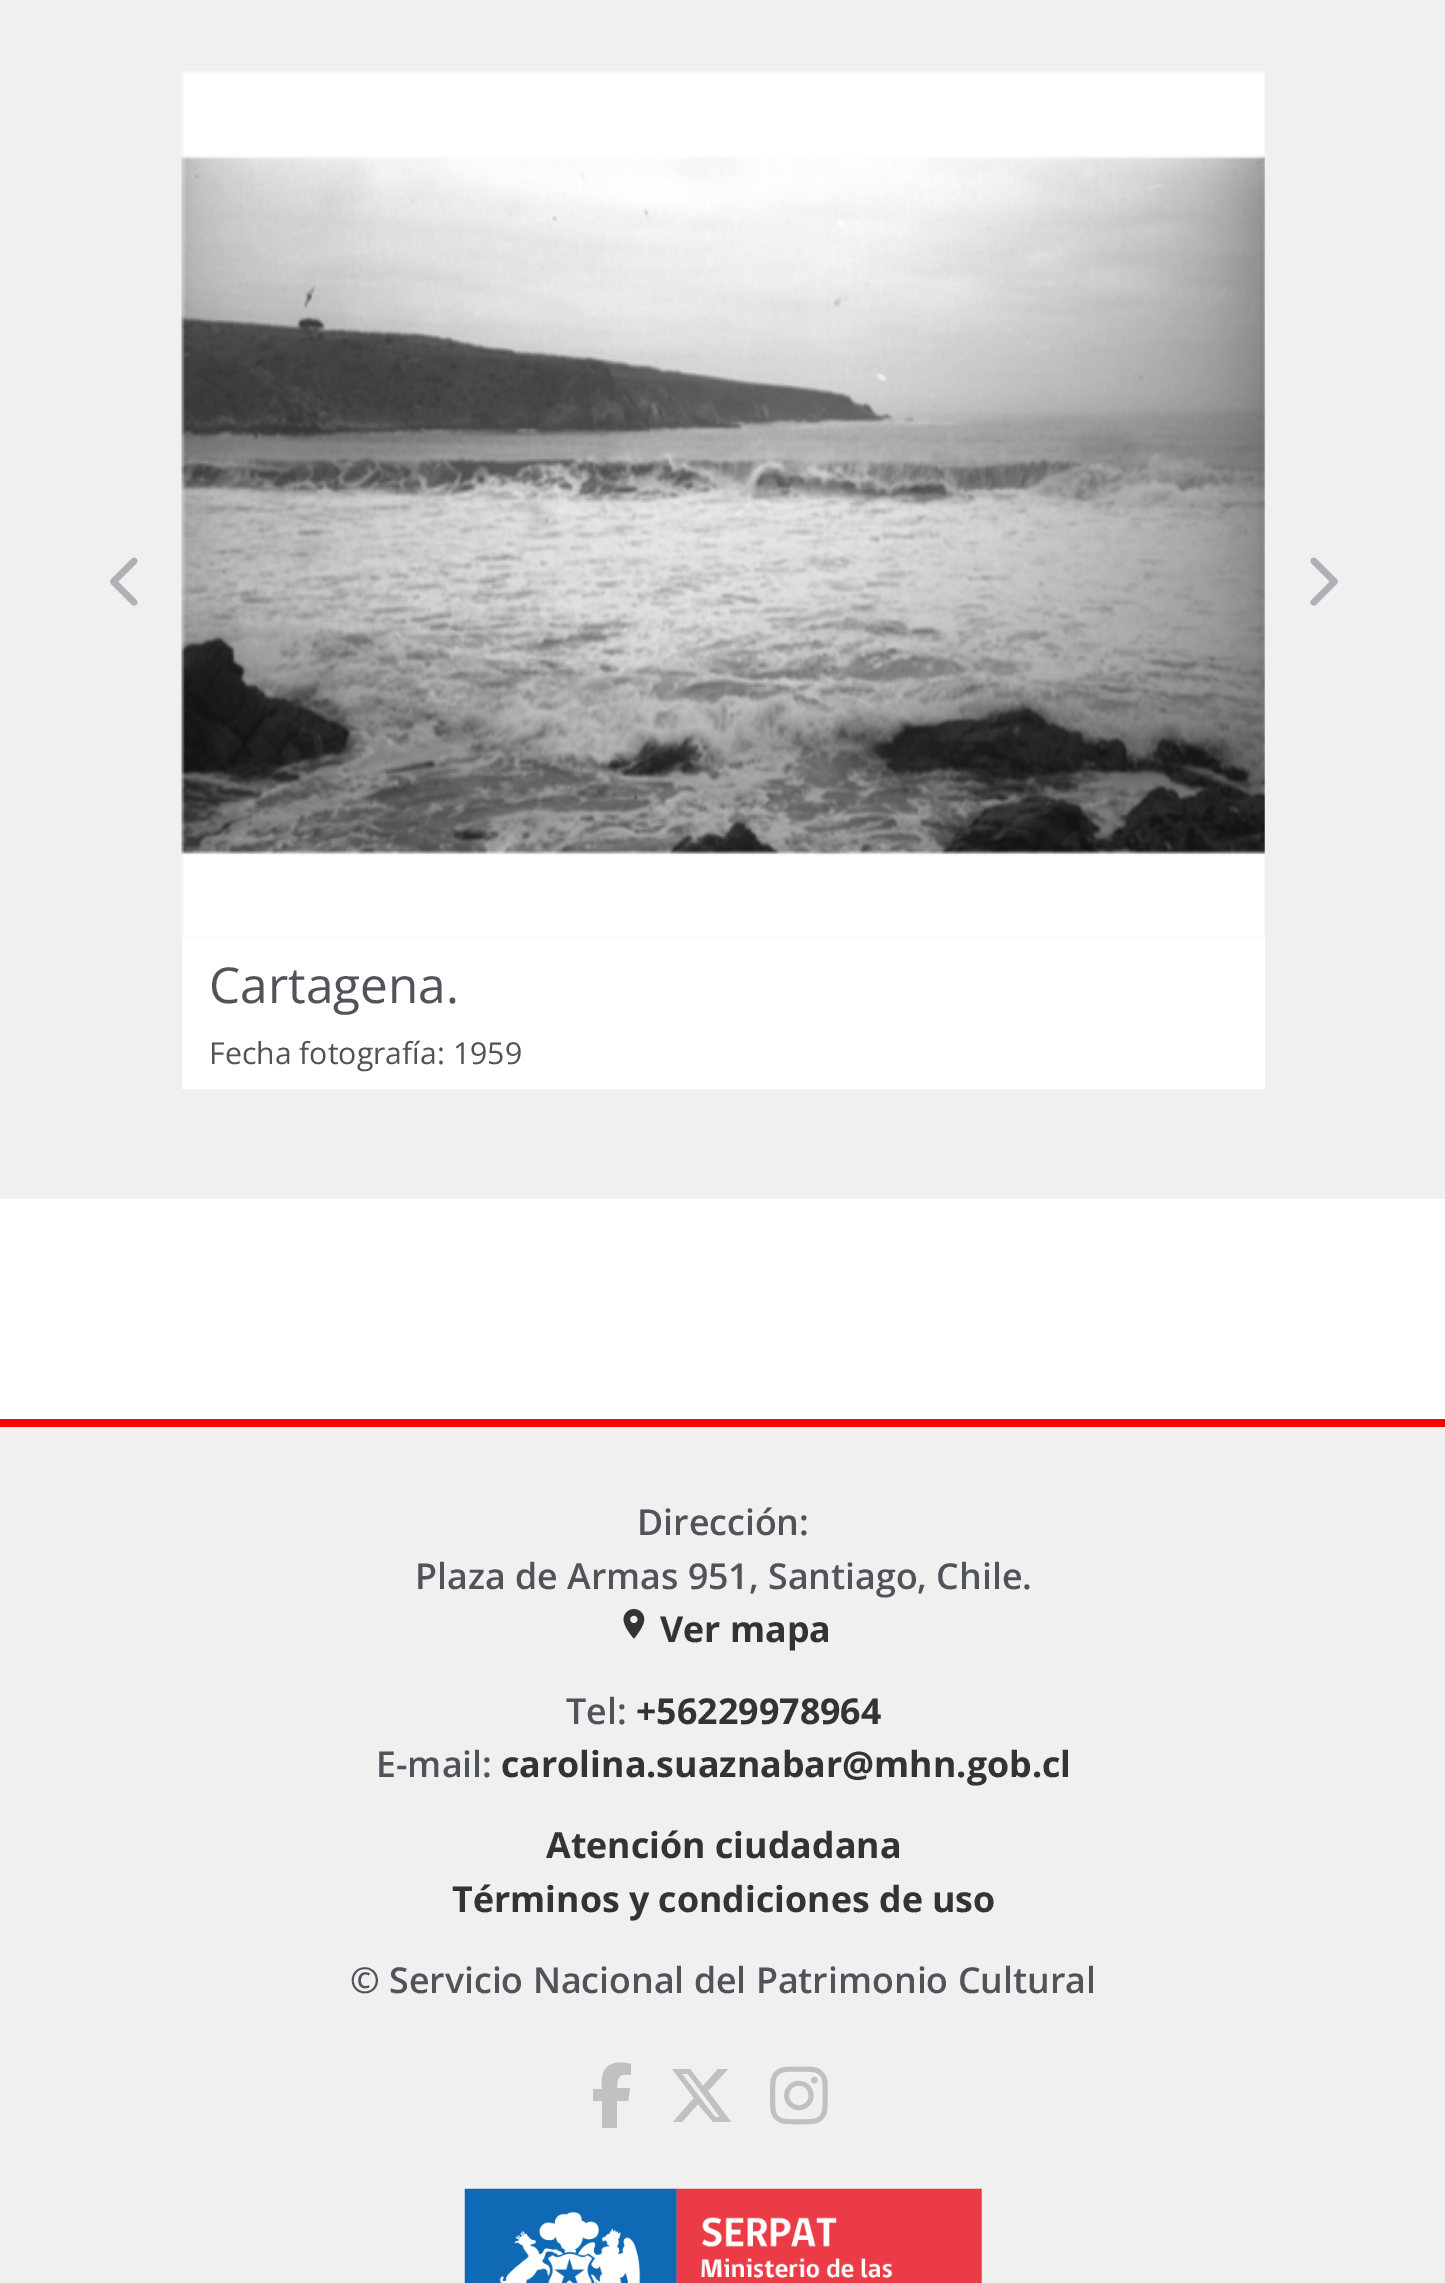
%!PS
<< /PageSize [1445 2283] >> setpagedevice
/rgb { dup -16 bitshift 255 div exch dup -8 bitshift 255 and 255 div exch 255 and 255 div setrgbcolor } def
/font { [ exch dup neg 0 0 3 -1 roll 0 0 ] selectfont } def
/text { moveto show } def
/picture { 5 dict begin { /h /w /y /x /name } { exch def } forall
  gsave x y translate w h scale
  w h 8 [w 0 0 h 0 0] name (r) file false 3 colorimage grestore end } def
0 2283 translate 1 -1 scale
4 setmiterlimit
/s1 { /OpenSans-Regular 49.5 font 16#50535A rgb } def
/s2 { /OpenSans-Regular 30.25 font 16#50535A rgb } def
/s3 { /OpenSans-SemiBold 35.75 font 16#50535A rgb } def
/s4 { /OpenSans-Bold 35.75 font 16#333333 rgb } def
16#FFFFFF rgb
0 0 1445 2283 rectfill
16#F0F0F0 rgb
0 0 1445 1199 rectfill
(pic1.raw) 110 557 28 49 picture
(pic2.raw) 1310 557 28 49 picture
(pic3.raw) 181 71 1084 867 picture
16#FFFFFF rgb
182 938 1083 151 rectfill
s1
(Cartagena.) 209 1003 text
s2
(Fecha fotografía: 1959) 209 1064 text
16#FF0000 rgb
0 1419 1445 8 rectfill
16#F0F0F0 rgb
0 1427 1445 856 rectfill
s3
(Dirección:) 637 1535 text
(Plaza de Armas 951, Santiago, Chile.) 415 1589 text
(pic4.raw) 623 1609 22 30 picture
s4
(Ver mapa) 660 1642 text
s3
(Tel:) 566 1724 text
s4
(+56229978964) 636 1724 text
s3
(E-mail:) 376 1777 text
s4
(carolina.suaznabar@mhn.gob.cl) 501 1777 text
(Atención ciudadana) 546 1858 text
(Términos y condiciones de uso) 452 1912 text
s3
(© Servicio Nacional del Patrimonio Cultural) 350 1993 text
16#C1C1C1 rgb
602 2101 moveto 602 2128 lineto 602 2101 lineto 602 2128 lineto 617 2128 lineto 617 2101 lineto 628 2101 lineto 630 2088 lineto 617 2088 lineto 617 2077 619 2073 631 2075 curveto 631 2064 lineto 620 2061 606 2062 603 2074 curveto 601 2079 602 2084 602 2089 curveto 593 2089 lineto 593 2101 lineto closepath fill
718 2069 moveto 728 2069 lineto 718 2069 lineto 728 2069 lineto 708 2091 lineto 731 2122 lineto 713 2122 lineto 698 2104 lineto 682 2122 lineto 673 2122 lineto 694 2098 lineto 672 2069 lineto 690 2069 lineto 703 2086 lineto closepath 715 2117 moveto 720 2117 lineto 715 2117 lineto 720 2117 lineto 688 2074 lineto 682 2074 lineto closepath fill
(pic5.raw) 770 2066 58 59 picture
(pic6.raw) 464 2188 518 95 picture
showpage
